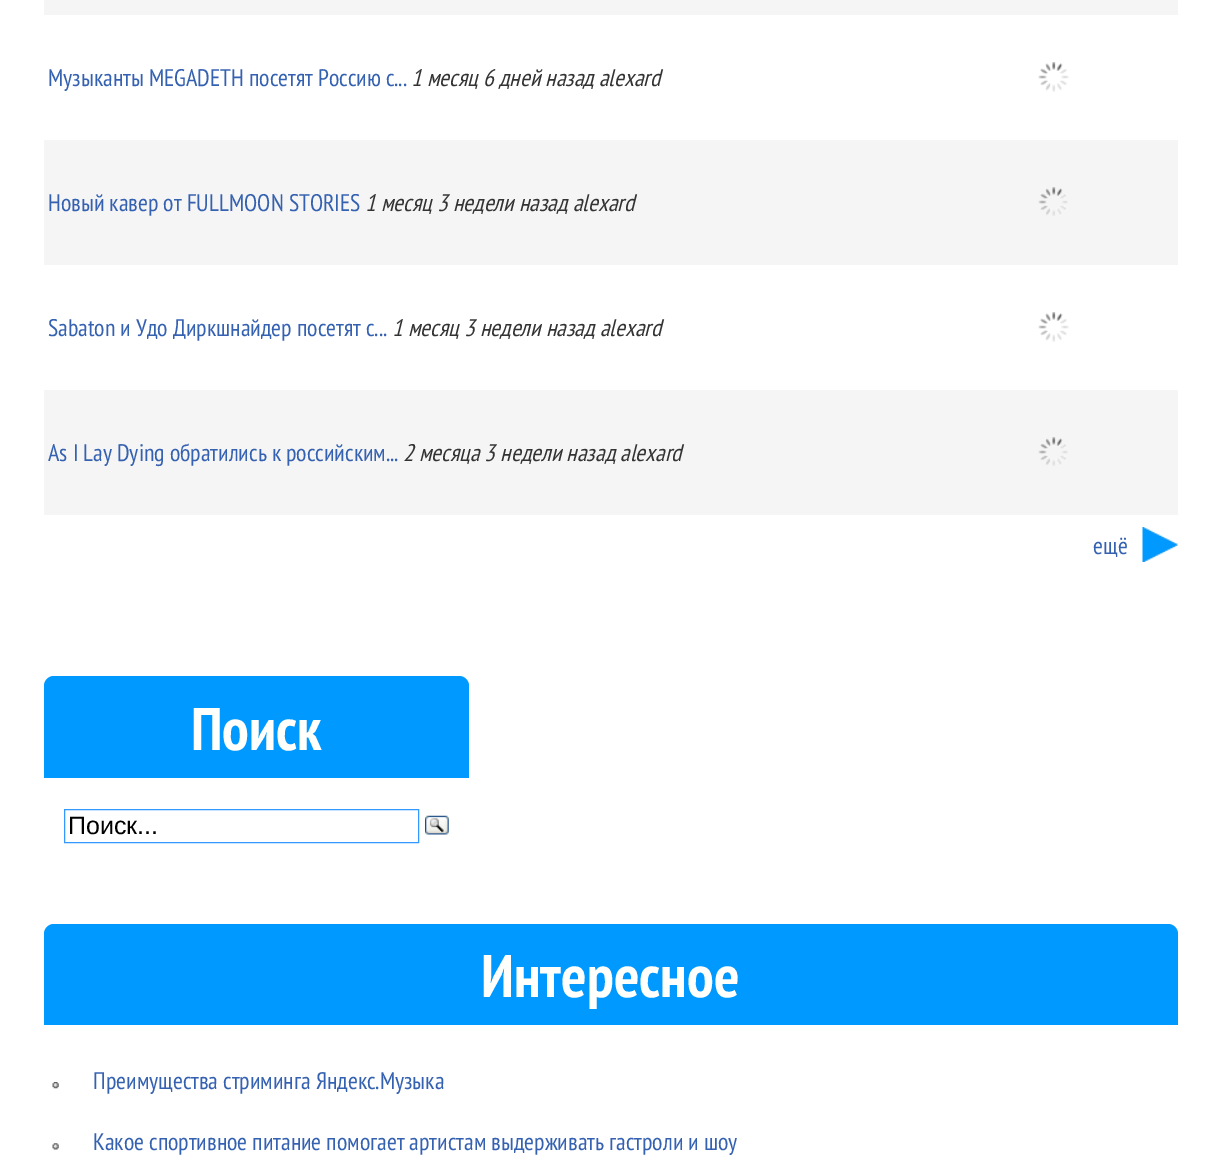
%!PS
<< /PageSize [1221 1173] >> setpagedevice
/rgb { dup -16 bitshift 255 div exch dup -8 bitshift 255 and 255 div exch 255 and 255 div setrgbcolor } def
/font { [ exch dup neg 0 0 3 -1 roll 0 0 ] selectfont } def
/text { moveto show } def
/picture { 5 dict begin { /h /w /y /x /name } { exch def } forall
  gsave x y translate w h scale
  w h 8 [w 0 0 h 0 0] name (r) file false 3 colorimage grestore end } def
0 1173 translate 1 -1 scale
4 setmiterlimit
/s1 { /PTSansNarrow-Regular 24 font 16#3561B1 rgb } def
/s2 { /PTSansNarrow-Italic 24 font 16#333333 rgb } def
/s3 { /PTSansNarrow-Bold 60 font 16#FFFFFC rgb } def
/s4 { /LiberationSans-Regular 25 font 16#000000 rgb } def
16#FFFFFF rgb
0 0 1221 1173 rectfill
16#F5F5F5 rgb
44 0 1134 15 rectfill
s1
(Музыканты MEGADETH посетят Россию с...) 48 86 text
s2
(1 месяц 6 дней назад alexard) 411 86 text
(pic1.raw) 1038 62 31 30 picture
16#F5F5F5 rgb
44 140 1134 125 rectfill
s1
(Новый кавер от FULLMOON STORIES) 48 211 text
s2
(1 месяц 3 недели назад alexard) 365 211 text
(pic2.raw) 1038 187 30 29 picture
s1
(Sabaton и Удо Диркшнайдер посетят с...) 48 336 text
s2
(1 месяц 3 недели назад alexard) 392 336 text
(pic1.raw) 1038 312 31 30 picture
16#F5F5F5 rgb
44 390 1134 125 rectfill
s1
(As I Lay Dying обратились к российским...) 48 461 text
s2
(2 месяца 3 недели назад alexard) 403 461 text
(pic2.raw) 1038 437 30 29 picture
(pic3.raw) 1142 527 36 35 picture
s1
(ещё) 1093 554 text
16#0099FF rgb
54 676 moveto 459 676 lineto 464.5 676 469 680.5 469 686 curveto 469 778 lineto 44 778 lineto 44 686 lineto 44 680.5 48.5 676 54 676 curveto closepath fill
s3
(Поиск) 191 750 text
16#3399FF rgb
64.5 809.5 354 33 rectstroke
s4
(Поиск...) 68 834 text
(pic4.raw) 425 815 24 20 picture
16#0099FF rgb
54 924 moveto 1168 924 lineto 1173.5 924 1178 928.5 1178 934 curveto 1178 1025 lineto 44 1025 lineto 44 934 lineto 44 928.5 48.5 924 54 924 curveto closepath fill
s3
(Интересное) 481 997 text
(pic5.raw) 52 1082 7 7 picture
s1
(Преимущества стриминга Яндекс.Музыка) 93 1089 text
(pic6.raw) 52 1143 7 7 picture
(Какое спортивное питание помогает артистам выдерживать гастроли и шоу) 93 1150 text
showpage
